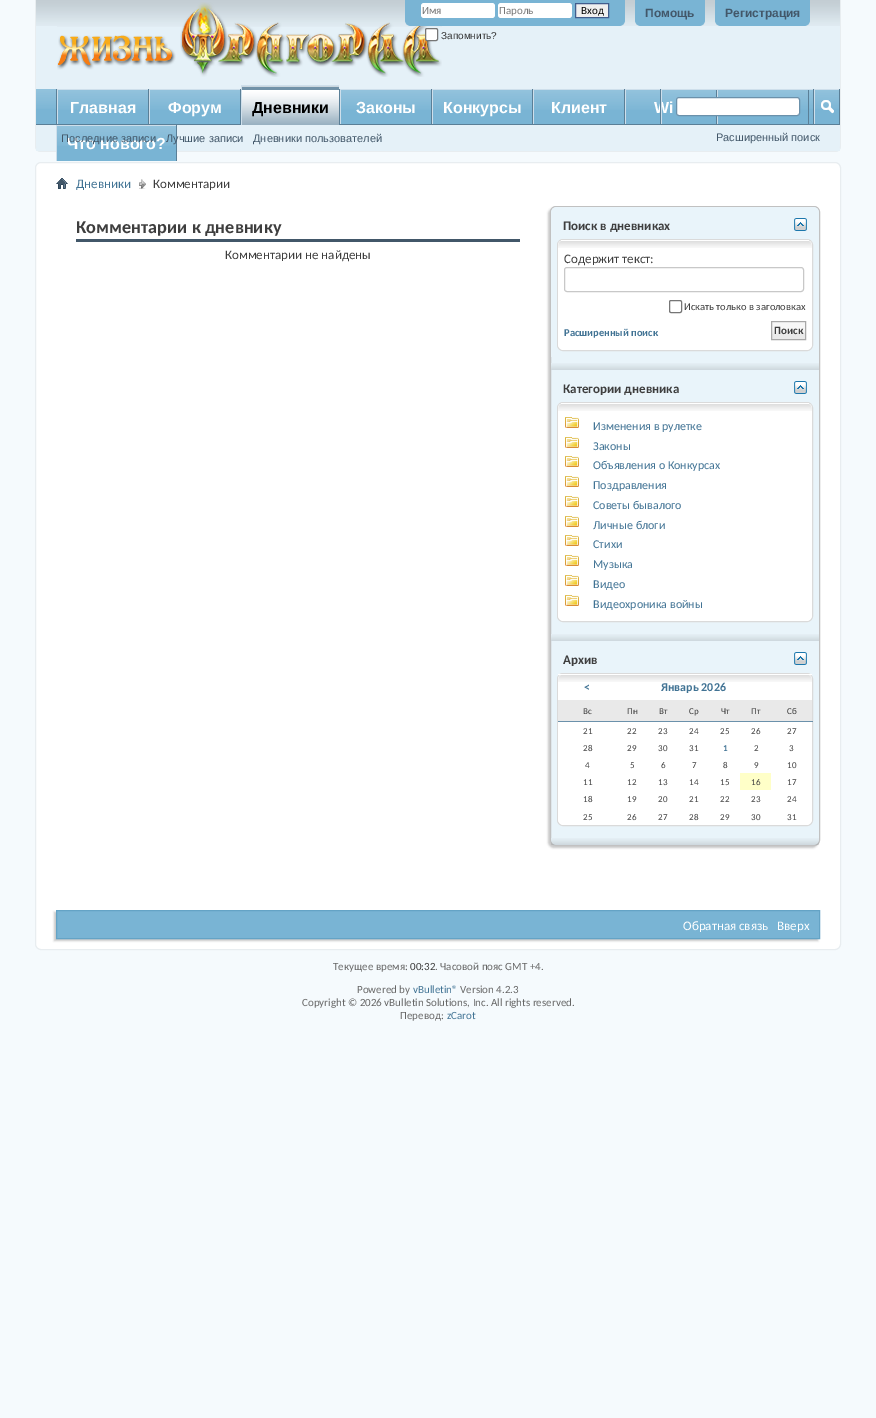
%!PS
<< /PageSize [876 1418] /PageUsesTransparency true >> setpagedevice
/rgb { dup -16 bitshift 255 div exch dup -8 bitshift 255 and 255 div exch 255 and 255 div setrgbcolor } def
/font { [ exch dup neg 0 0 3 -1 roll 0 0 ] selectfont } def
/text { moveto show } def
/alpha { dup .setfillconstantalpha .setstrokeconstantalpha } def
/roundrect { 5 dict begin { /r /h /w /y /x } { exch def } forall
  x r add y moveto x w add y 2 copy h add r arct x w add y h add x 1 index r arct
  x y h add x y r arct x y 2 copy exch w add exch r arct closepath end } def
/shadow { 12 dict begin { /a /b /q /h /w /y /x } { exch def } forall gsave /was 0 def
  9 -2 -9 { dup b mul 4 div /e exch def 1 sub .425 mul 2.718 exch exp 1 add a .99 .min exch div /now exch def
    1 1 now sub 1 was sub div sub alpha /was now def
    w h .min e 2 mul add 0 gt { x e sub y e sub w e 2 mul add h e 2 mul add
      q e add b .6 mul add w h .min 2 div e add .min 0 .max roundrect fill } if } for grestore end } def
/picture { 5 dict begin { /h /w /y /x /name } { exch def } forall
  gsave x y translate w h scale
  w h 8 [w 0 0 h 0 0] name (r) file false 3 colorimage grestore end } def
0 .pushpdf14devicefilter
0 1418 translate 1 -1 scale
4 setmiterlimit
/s1 { /Carlito-Regular 11 font 16#777777 rgb } def
/s2 { /Carlito-Regular 11 font 16#000000 rgb } def
/s3 { /LiberationSans-Regular 10 font 16#333333 rgb } def
/s4 { /LiberationSans-Bold 12 font 16#425769 rgb } def
/s5 { /LiberationSans-Bold 16 font 16#FFFFFF rgb } def
/s6 { /LiberationSans-Bold 16 font 16#000000 rgb } def
/s7 { /LiberationSans-Regular 11 font 16#425769 rgb } def
/s8 { /Carlito-Regular 13 font 16#417394 rgb } def
/s9 { /Carlito-Regular 13 font 16#3E3E3E rgb } def
/s10 { /Carlito-Bold 18.25 font 16#3E3E3E rgb } def
/s11 { /Carlito-Bold 13 font 16#3E3E3E rgb } def
/s12 { /Carlito-Regular 10.5 font 16#3E3E3E rgb } def
/s13 { /Carlito-Bold 10.5 font 16#417394 rgb } def
/s14 { /Carlito-Bold 11 font 16#3E3E3E rgb } def
/s15 { /Carlito-Regular 12 font 16#417394 rgb } def
/s16 { /Carlito-Bold 12 font 16#417394 rgb } def
/s17 { /Carlito-Regular 9 font 16#3E3E3E rgb } def
/s18 { /Carlito-Bold 9 font 16#417394 rgb } def
/s19 { /Carlito-Regular 13 font 16#FFFFFF rgb } def
/s20 { /Carlito-Regular 11 font 16#666666 rgb } def
/s21 { /Carlito-Regular 11 font 16#3E3E3E rgb } def
/s22 { /Carlito-Regular 11 font 16#417394 rgb } def
16#F5FAFD rgb
0 0 876 1418 rectfill
16#E5F1F8 rgb
35 0 moveto 841 0 lineto 841 146 lineto 841 149.5 838.5 152 835 152 curveto 41 152 lineto 37.5 152 35 149.5 35 146 curveto closepath fill
(pic1.raw) 36 0 804 26 picture
16#E8EDF0 rgb
35 0 moveto 841 0 lineto 841 146 lineto 841 149 838 152 835 152 curveto 41 152 lineto 38 152 35 149 35 146 curveto closepath 36 0 moveto 840 0 lineto 840 146 lineto 840 149 838 151 835 151 curveto 41 151 lineto 38 151 36 149 36 146 curveto closepath eofill
(pic2.raw) 57 2 385 75 picture
16#79B4D4 rgb
405 0 moveto 625 0 lineto 625 20 lineto 625 23.5 622.5 26 619 26 curveto 411 26 lineto 407.5 26 405 23.5 405 20 curveto closepath fill
16#FFFFFF rgb
421 3 74 15 3 roundrect fill
s1
(Имя) 422 14 text
16#FFFFFF rgb
498 3 74 15 3 roundrect fill
s1
(Пароль) 499 14 text
16#EFEFEF rgb
575.5 3.5 moveto 608.5 3.5 lineto 608.5 17.5 lineto 575.5 17.5 lineto closepath gsave fill grestore
16#415D8D rgb
stroke
s2
(Вход) 581 14 text
16#FFFFFF rgb
425.5 28.5 12 12 1.5 roundrect gsave fill grestore
16#767676 rgb
stroke
s3
(Запомнить?) 441 39 text
16#79B4D4 rgb
635 0 moveto 705 0 lineto 705 20 lineto 705 23.5 702.5 26 699 26 curveto 641 26 lineto 637.5 26 635 23.5 635 20 curveto closepath fill
s4
(Помощь) 645 17 text
16#79B4D4 rgb
715 0 moveto 810 0 lineto 810 20 lineto 810 23.5 807.5 26 804 26 curveto 721 26 lineto 717.5 26 715 23.5 715 20 curveto closepath fill
s4
(Регистрация) 725 17 text
16#E5F1F8 rgb
36 148 804 3 rectfill
16#79B4D4 rgb
36 89 803 35 rectfill
(pic3.raw) 36 89 803 20 picture
16#5A7F97 rgb
148 89 1 36 rectfill
56 89 1 36 rectfill
16#79B4D4 rgb
58 90 90 19 rectfill
(pic4.raw) 58 90 90 20 picture
16#CEDFEB rgb
57 89 91 1 rectfill
57 89 1 36 rectfill
s5
(Главная) 70 113 text
16#5A7F97 rgb
240 89 1 36 rectfill
16#79B4D4 rgb
150 90 90 19 rectfill
(pic4.raw) 150 90 90 20 picture
16#CEDFEB rgb
149 89 91 1 rectfill
149 89 1 36 rectfill
s5
(Форум) 168 113 text
16#5A7F97 rgb
339 89 1 35 rectfill
431 89 1 36 rectfill
16#CEDFEB rgb
340 89 91 1 rectfill
340 89 1 36 rectfill
16#5A7F97 rgb
532 89 1 36 rectfill
16#CEDFEB rgb
432 89 100 1 rectfill
432 89 1 36 rectfill
16#5A7F97 rgb
624 89 1 36 rectfill
16#CEDFEB rgb
533 89 91 1 rectfill
533 89 1 36 rectfill
16#5A7F97 rgb
716 89 1 36 rectfill
16#CEDFEB rgb
625 89 35 1 rectfill
625 89 1 36 rectfill
16#5A7F97 rgb
808 89 1 36 rectfill
16#CEDFEB rgb
717 89 1 36 rectfill
16#5A7F97 rgb
36 124 804 1 rectfill
16#7192A8 rgb
242 86 97 39 rectfill
(pic5.raw) 242 86 97 39 picture
16#CEDFEB rgb
241 85 98 1 rectfill
241 85 1 40 rectfill
s6
(Дневники) 252 113 text
16#79B4D4 rgb
341 90 90 19 rectfill
(pic4.raw) 341 90 90 20 picture
s5
(Законы) 356 113 text
16#79B4D4 rgb
433 90 99 19 rectfill
(pic6.raw) 433 90 99 20 picture
s5
(Конкурсы) 443 113 text
16#79B4D4 rgb
534 90 90 19 rectfill
(pic4.raw) 534 90 90 20 picture
s5
(Клиент) 551 113 text
16#79B4D4 rgb
626 90 90 19 rectfill
(pic4.raw) 626 90 90 20 picture
s5
(Wi) 654 113 text
16#79B4D4 rgb
718 90 90 19 rectfill
(pic4.raw) 718 90 90 20 picture
57 126 119 35 rectfill
(pic7.raw) 57 126 119 20 picture
s5
(Что нового?) 67 149 text
s7
(Последние записи) 61 142 text
16#5A7F97 rgb
176 125 1 36 rectfill
s7
(Лучшие записи) 166 142 text
(Дневники пользователей) 253 142 text
16#CEDFEB rgb
56 125 120 1 rectfill
56 125 1 36 rectfill
16#5A7F97 rgb
660 89 1 35 rectfill
16#CEDFEB rgb
661 89 152 1 rectfill
661 89 1 35 rectfill
16#FFFFFF rgb
676.5 97.5 123 18 2.5 roundrect gsave fill grestore
16#6B91AB rgb
stroke
16#5A7F97 rgb
839 89 1 35 rectfill
813 89 1 35 rectfill
16#CEDFEB rgb
814 89 25 1 rectfill
814 89 1 35 rectfill
(pic8.raw) 821 100 13 14 picture
s7
(Расширенный поиск) 716 141 text
16#FFFFFF rgb
35.5 162.5 805 787 5.5 roundrect gsave fill grestore
16#E8EDF0 rgb
stroke
(pic9.raw) 56 178 12 11 picture
(pic10.raw) 139 179 7 10 picture
s8
(Дневники) 76 188 text
s9
(Комментарии) 153 188 text
16#425769 rgb
76 239 444 3 rectfill
s10
(Комментарии к дневнику) 76 233 text
s9
(Комментарии не найдены) 225 259 text
16#C8C8C8 rgb
548 208 270 640 6 1 1 shadow
16#E9F4FA rgb
550.5 206.5 269 639 5.5 roundrect gsave fill grestore
16#C1C1C1 rgb
stroke
16#E9F4FA rgb
557 207 moveto 813 207 lineto 816.5 207 819 209.5 819 213 curveto 819 357 lineto 551 357 lineto 551 213 lineto 551 209.5 553.5 207 557 207 curveto closepath fill
s11
(Поиск в дневниках) 563 230 text
(pic11.raw) 794 218 13 13 picture
16#FFFFFF rgb
557.5 239.5 255 111 5.5 roundrect gsave fill grestore
16#DADADA rgb
stroke
16#FFFFFF rgb
558 240 254 110 6 roundrect fill
(pic12.raw) 558 241 254 7 picture
561 240 248 1 rectfill
s9
(Содержит текст:) 564 263 text
16#C8C8C8 rgb
564.5 267.5 239 24 2.5 roundrect stroke
16#767676 rgb
669.5 300.5 12 12 1.5 roundrect stroke
s12
(Искать только в заголовках) 684 310 text
s13
(Расширенный поиск) 564 336 text
16#E9E9E9 rgb
772 322 33 17 rectfill
(pic13.raw) 772 322 33 12 picture
16#A8A8A8 rgb
771.5 321.5 34 18 rectstroke
s14
(Поиск) 774 334 text
(pic14.raw) 551 363 268 7 picture
s11
(Категории дневника) 563 393 text
(pic11.raw) 794 381 13 13 picture
16#FFFFFF rgb
557.5 402.5 255 219 5.5 roundrect gsave fill grestore
16#DADADA rgb
stroke
16#FFFFFF rgb
558 403 254 218 6 roundrect fill
(pic12.raw) 558 404 254 7 picture
561 403 248 1 rectfill
(pic15.raw) 565 417 14 11 picture
s15
(Изменения в рулетке) 593 430 text
(pic15.raw) 565 437 14 11 picture
(Законы) 593 450 text
(pic15.raw) 565 456 14 11 picture
(Объявления о Конкурсах) 593 469 text
(pic15.raw) 565 476 14 11 picture
(Поздравления) 593 489 text
(pic15.raw) 565 496 14 11 picture
(Советы бывалого) 593 509 text
(pic15.raw) 565 516 14 11 picture
(Личные блоги) 593 529 text
(pic15.raw) 565 535 14 11 picture
(Стихи) 593 548 text
(pic15.raw) 565 555 14 11 picture
(Музыка) 593 568 text
(pic15.raw) 565 575 14 11 picture
(Видео) 593 588 text
(pic15.raw) 565 595 14 11 picture
(Видеохроника войны) 593 608 text
(pic14.raw) 551 634 268 7 picture
s11
(Архив) 563 664 text
(pic11.raw) 794 652 13 13 picture
16#FFFFFF rgb
557.5 673.5 255 152 5.5 roundrect gsave fill grestore
16#DADADA rgb
stroke
16#FFFFFF rgb
558 674 254 151 6 roundrect fill
(pic12.raw) 558 675 254 7 picture
558 674 254 1 rectfill
s16
(<) 584 691 text
(Январь 2026) 661 691 text
16#E9E9E9 rgb
558 700 254 21 rectfill
s17
(Вс) 583 714 text
(Пн) 627 714 text
(Вт) 659 714 text
(Ср) 689 714 text
(Чт) 721 714 text
(Пт) 751 714 text
16#6B91AB rgb
558 721 255 1 rectfill
s17
(Сб) 787 714 text
(21) 583 734 text
(22) 627 734 text
(23) 658 734 text
(24) 689 734 text
(25) 720 734 text
(26) 751 734 text
(27) 787 734 text
(28) 583 751 text
(29) 627 751 text
(30) 658 751 text
(31) 689 751 text
s18
(1) 723 751 text
s17
(2) 754 751 text
(3) 789 751 text
(4) 585 768 text
(5) 630 768 text
(6) 661 768 text
(7) 692 768 text
(8) 723 768 text
(9) 754 768 text
(10) 787 768 text
(11) 583 785 text
(12) 627 785 text
(13) 658 785 text
(14) 689 785 text
(15) 720 785 text
16#FFFFC8 rgb
740 773 31 17 rectfill
s17
(16) 751 785 text
(17) 787 785 text
(18) 583 802 text
(19) 627 802 text
(20) 658 802 text
(21) 689 802 text
(22) 720 802 text
(23) 751 802 text
(24) 787 802 text
(25) 583 820 text
(26) 627 820 text
(27) 658 820 text
(28) 689 820 text
(29) 720 820 text
(30) 751 820 text
(31) 787 820 text
(pic16.raw) 551 838 268 7 picture
16#C8C8C8 rgb
54 912 764 29 0 1 1 shadow
16#79B4D4 rgb
56.5 910.5 moveto 819.5 910.5 lineto 819.5 938.5 lineto 56.5 938.5 lineto closepath gsave fill grestore
16#64A3C5 rgb
stroke
s19
(Обратная связь) 683 930 text
(Вверх) 777 930 text
s20
(Текущее время:) 333 970 text
s21
(00:32) 410 970 text
s20
(. Часовой пояс GMT +4.) 435 970 text
(Powered by) 357 993 text
s22
(vBulletin®) 413 993 text
s20
(Version 4.2.3) 460 993 text
(Copyright © 2026 vBulletin Solutions, Inc. All rights reserved.) 302 1006 text
(Перевод:) 400 1019 text
s22
(zCarot) 447 1019 text
.poppdf14devicefilter showpage
